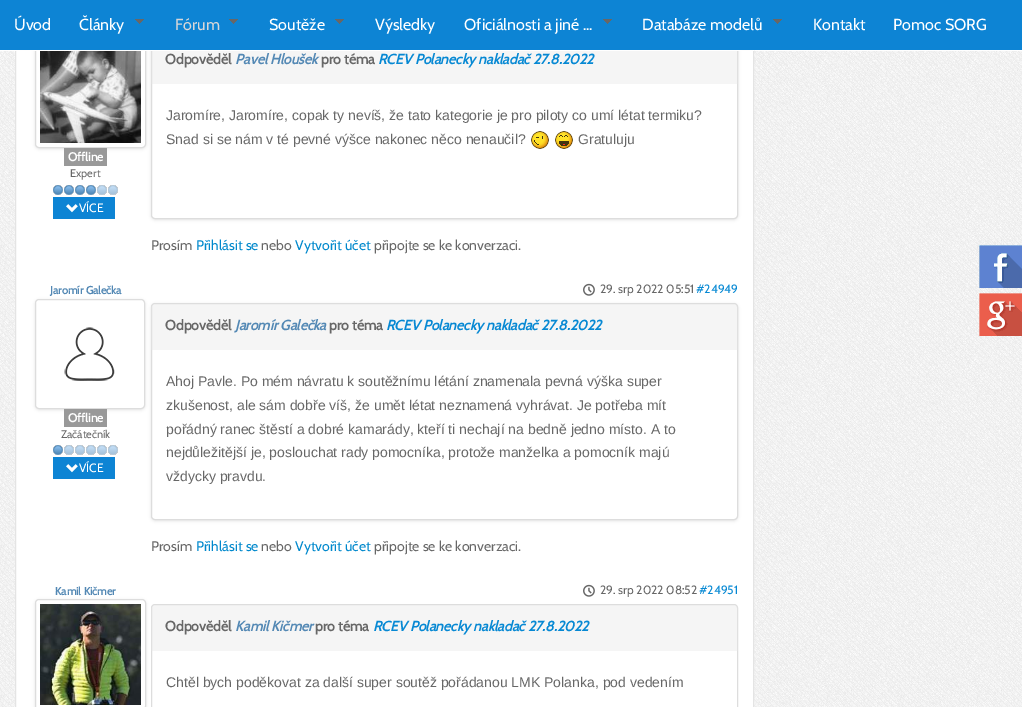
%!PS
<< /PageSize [1022 707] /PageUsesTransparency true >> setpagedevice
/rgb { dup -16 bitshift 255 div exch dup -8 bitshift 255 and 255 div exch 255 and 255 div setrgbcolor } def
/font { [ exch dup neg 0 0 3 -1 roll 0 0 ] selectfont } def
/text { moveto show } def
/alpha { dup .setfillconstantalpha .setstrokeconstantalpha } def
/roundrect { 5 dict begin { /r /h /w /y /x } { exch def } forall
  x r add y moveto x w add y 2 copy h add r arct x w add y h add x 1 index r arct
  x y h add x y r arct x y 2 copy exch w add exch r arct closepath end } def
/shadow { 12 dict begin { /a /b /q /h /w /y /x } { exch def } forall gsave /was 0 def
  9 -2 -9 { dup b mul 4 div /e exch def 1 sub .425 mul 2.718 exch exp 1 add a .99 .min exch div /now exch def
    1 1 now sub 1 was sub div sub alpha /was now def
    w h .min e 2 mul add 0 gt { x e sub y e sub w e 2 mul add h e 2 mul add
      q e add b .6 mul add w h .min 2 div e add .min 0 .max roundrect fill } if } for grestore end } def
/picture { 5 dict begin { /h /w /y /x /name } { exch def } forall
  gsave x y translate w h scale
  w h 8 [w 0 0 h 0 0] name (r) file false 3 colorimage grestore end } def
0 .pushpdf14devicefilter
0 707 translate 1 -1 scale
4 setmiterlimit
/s1 { /Cabin-Regular 16 font 16#FFFFFF rgb } def
/s2 { /Cabin-Regular 16 font 16#D9D7D8 rgb } def
/s3 { /Cabin-Bold 12 font 16#FFFFFF rgb } def
/s4 { /Cabin-Regular 11 font 16#676767 rgb } def
/s5 { /Cabin-Regular 12 font 16#FFFFFF rgb } def
/s6 { /Cabin-Bold 14 font 16#676767 rgb } def
/s7 { /Cabin-BoldItalic 14 font 16#5388B4 rgb } def
/s8 { /Cabin-BoldItalic 14 font 16#0688D3 rgb } def
/s9 { /LiberationSans-Regular 14 font 16#676767 rgb } def
/s10 { /Cabin-Regular 14 font 16#676767 rgb } def
/s11 { /Cabin-Regular 14 font 16#0088CC rgb } def
/s12 { /Cabin-Bold 11 font 16#5388B4 rgb } def
/s13 { /Cabin-Regular 12 font 16#676767 rgb } def
/s14 { /Cabin-Regular 12 font 16#0688D3 rgb } def
16#FFFFFF rgb
0 0 1022 707 rectfill
(pic1.raw) 0 51 1022 656 picture
16 51 737 656 rectfill
16#E4E4E4 rgb
15.5 -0.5 738 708 rectstroke
16#000000 rgb
35 34 111 115 4 1.5 0.1 shadow
16#FFFFFF rgb
35.5 33.5 110 114 3.5 roundrect gsave fill grestore
16#DDDDDD rgb
stroke
gsave
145 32 moveto 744 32 lineto 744 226 lineto 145 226 lineto closepath 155 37 moveto 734 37 lineto 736 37 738 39 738 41 curveto 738 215 lineto 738 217 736 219 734 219 curveto 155 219 lineto 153 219 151 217 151 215 curveto 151 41 lineto 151 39 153 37 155 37 curveto closepath eoclip newpath
16#000000 rgb
151 38 587 182 4 1.5 0.1 shadow
grestore
151.5 37.5 586 181 3.5 roundrect stroke
16#0D84D4 rgb
0 0 1022 50 rectfill
16#FFFFFF rgb
15 50 739 1 rectfill
s1
(Úvod) 14 30 text
(Články) 79 30 text
(pic2.raw) 135 19 9 5 picture
s2
(Fórum) 175 30 text
(pic2.raw) 229 19 9 5 picture
s1
(Soutěže) 269 30 text
(pic2.raw) 335 19 9 5 picture
(Výsledky) 375 30 text
(Oficiálnosti a jiné ...) 464 30 text
(pic2.raw) 603 19 9 5 picture
(Databáze modelů) 642 30 text
(pic2.raw) 773 19 9 5 picture
(Kontakt) 813 30 text
(Pomoc SORG) 893 30 text
(pic3.raw) 40 51 101 92 picture
16#999999 rgb
64 148 43 18 rectfill
s3
(Offline) 68 161 text
s4
(Expert) 70 177 text
(pic4.raw) 53 185 65 10 picture
16#0D84D4 rgb
53 197 62 22 rectfill
(pic5.raw) 66 204 12 9 picture
s5
(VÍCE) 79 212 text
0.4 alpha
16#E5E5E5 rgb
151 51 587 33 rectfill
1 alpha
s6
(Odpověděl) 165 64 text
s7
(Pavel Hloušek) 235 64 text
s6
(pro téma) 321 64 text
s8
(RCEV Polanecky nakladač 27.8.2022) 378 64 text
s9
(Jaromíre, Jaromíre, copak ty nevíš, že tato kategorie je pro piloty co umí létat termiku?) 166 120 text
(Snad si se nám v té pevné výšce nakonec něco nenaučil?) 166 144 text
(pic6.raw) 531 131 18 18 picture
(pic7.raw) 555 131 18 18 picture
(Gratuluju) 578 144 text
s10
(Prosím) 151 250 text
s11
(Přihlásit se) 196 250 text
s10
(nebo) 261 250 text
s11
(Vytvořit účet) 295 250 text
s10
(připojte se ke konverzaci.) 374 250 text
s12
(Jaromír Galečka) 50 294 text
16#000000 rgb
35 300 110 110 4 1.5 0.1 shadow
16#FFFFFF rgb
35.5 299.5 109 109 3.5 roundrect gsave fill grestore
16#DDDDDD rgb
stroke
(pic8.raw) 64 327 51 54 picture
16#999999 rgb
64 409 43 18 rectfill
s3
(Offline) 68 422 text
s4
(Začátečník) 61 438 text
(pic9.raw) 53 445 65 10 picture
16#0D84D4 rgb
53 457 62 22 rectfill
(pic5.raw) 66 464 12 9 picture
s5
(VÍCE) 79 472 text
(pic10.raw) 583 283 12 13 picture
s13
(29. srp 2022 05:51) 600 293 text
s14
(#24949) 696 293 text
gsave
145 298 moveto 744 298 lineto 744 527 lineto 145 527 lineto closepath 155 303 moveto 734 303 lineto 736 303 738 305 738 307 curveto 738 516 lineto 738 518 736 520 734 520 curveto 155 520 lineto 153 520 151 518 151 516 curveto 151 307 lineto 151 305 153 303 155 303 curveto closepath eoclip newpath
16#000000 rgb
151 304 587 217 4 1.5 0.1 shadow
grestore
16#DDDDDD rgb
151.5 303.5 586 216 3.5 roundrect stroke
0.4 alpha
16#E5E5E5 rgb
155 304 moveto 734 304 lineto 736 304 738 306 738 308 curveto 738 350 lineto 151 350 lineto 151 308 lineto 151 306 153 304 155 304 curveto closepath fill
1 alpha
s6
(Odpověděl) 165 330 text
s7
(Jaromír Galečka) 235 330 text
s6
(pro téma) 329 330 text
s8
(RCEV Polanecky nakladač 27.8.2022) 386 330 text
s9
(Ahoj Pavle. Po mém návratu k soutěžnímu létání znamenala pevná výška super) 166 386 text
(zkušenost, ale sám dobře víš, že umět létat neznamená vyhrávat. Je potřeba mít) 166 410 text
(pořádný ranec štěstí a dobré kamarády, kteří ti nechají na bedně jedno místo. A to) 166 434 text
(nejdůležitější je, poslouchat rady pomocníka, protože manželka a pomocník majú) 166 457 text
(vždycky pravdu.) 166 481 text
s10
(Prosím) 151 551 text
s11
(Přihlásit se) 196 551 text
s10
(nebo) 261 551 text
s11
(Vytvořit účet) 295 551 text
s10
(připojte se ke konverzaci.) 374 551 text
s12
(Kamil Kičmer) 55 595 text
16#000000 rgb
35 600 111 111 4 1.5 0.1 shadow
16#FFFFFF rgb
35.5 599.5 110 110 3.5 roundrect gsave fill grestore
16#DDDDDD rgb
stroke
(pic11.raw) 40 604 101 101 picture
(pic10.raw) 583 584 12 13 picture
s13
(29. srp 2022 08:52) 600 594 text
s14
(#24951) 699 594 text
16#DDDDDD rgb
151.5 604.5 586 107 3.5 roundrect stroke
0.4 alpha
16#E5E5E5 rgb
155 605 moveto 734 605 lineto 736 605 738 607 738 609 curveto 738 651 lineto 151 651 lineto 151 609 lineto 151 607 153 605 155 605 curveto closepath fill
1 alpha
s6
(Odpověděl) 165 631 text
s7
(Kamil Kičmer) 235 631 text
s6
(pro téma) 315 631 text
s8
(RCEV Polanecky nakladač 27.8.2022) 373 631 text
s9
(Chtěl bych poděkovat za další super soutěž pořádanou LMK Polanka, pod vedením) 166 687 text
(pic12.raw) 979 245 43 43 picture
(pic13.raw) 979 293 43 43 picture
.poppdf14devicefilter showpage
